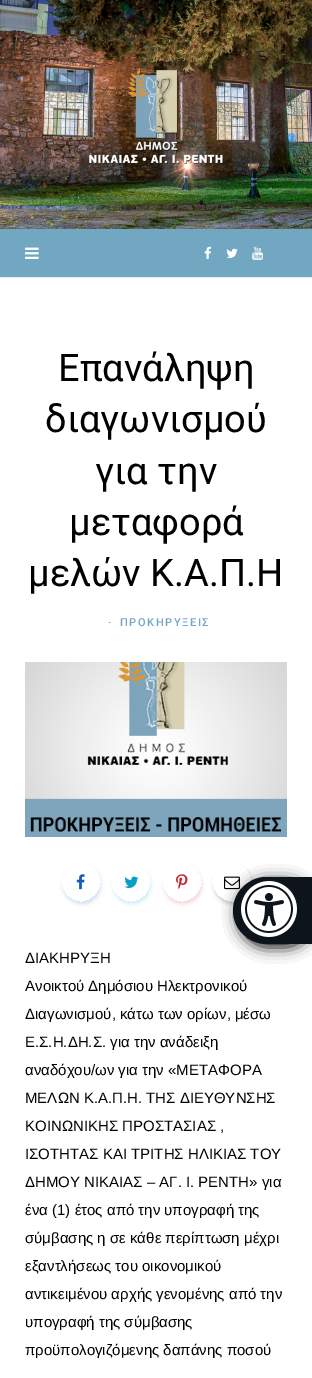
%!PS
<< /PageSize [312 1378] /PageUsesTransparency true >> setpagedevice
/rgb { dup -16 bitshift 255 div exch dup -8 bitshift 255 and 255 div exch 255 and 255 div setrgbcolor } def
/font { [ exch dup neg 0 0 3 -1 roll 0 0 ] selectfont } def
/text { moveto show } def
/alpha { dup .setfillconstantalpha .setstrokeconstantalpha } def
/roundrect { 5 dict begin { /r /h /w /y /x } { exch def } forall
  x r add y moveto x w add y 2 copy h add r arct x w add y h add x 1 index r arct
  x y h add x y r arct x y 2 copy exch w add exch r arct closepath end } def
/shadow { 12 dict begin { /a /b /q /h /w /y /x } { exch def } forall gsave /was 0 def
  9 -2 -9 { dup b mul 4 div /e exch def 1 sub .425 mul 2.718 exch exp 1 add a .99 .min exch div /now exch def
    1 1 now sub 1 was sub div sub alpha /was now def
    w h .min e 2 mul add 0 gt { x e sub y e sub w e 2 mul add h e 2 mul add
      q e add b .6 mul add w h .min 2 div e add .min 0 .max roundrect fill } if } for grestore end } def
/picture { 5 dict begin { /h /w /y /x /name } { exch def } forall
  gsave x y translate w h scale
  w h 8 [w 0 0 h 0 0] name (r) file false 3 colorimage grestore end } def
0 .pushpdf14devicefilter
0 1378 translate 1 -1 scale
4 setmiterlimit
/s1 { /Roboto-Regular 38 font 16#000000 rgb } def
/s2 { /Roboto-Regular 11 font 16#DD9933 rgb } def
/s3 { /LiberationSans-Regular 15 font 16#000000 rgb } def
16#FFFFFF rgb
0 0 312 1378 rectfill
16#EBEBEB rgb
0 277 312 1 rectfill
(pic1.raw) 0 0 312 229 picture
(pic2.raw) 89 67 135 97 picture
16#71A7C1 rgb
0 229 312 48 rectfill
(pic3.raw) 25 247 14 12 picture
(pic4.raw) 204 246 7 13 picture
(pic5.raw) 226 248 12 10 picture
(pic6.raw) 252 246 11 14 picture
s1
(Επανάληψη) 58 381 text
(διαγωνισμού) 45 432 text
(για την) 95 484 text
(μεταφορά) 69 535 text
(μελών Κ.Α.Π.Η) 28 586 text
s2
(-) 108 626 text
/Roboto-Medium 11 font
16#71A7C1 rgb
120 626 moveto 1.6 0 (ΠΡΟΚΗΡΥΞΕΙΣ) ashow
(pic7.raw) 25 662 262 175 picture
gsave
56 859 moveto 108 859 lineto 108 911 lineto 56 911 lineto closepath 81 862 moveto 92 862 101 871 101 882 curveto 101 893 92 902 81 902 curveto 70 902 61 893 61 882 curveto 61 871 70 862 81 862 curveto closepath eoclip newpath
16#135CB6 rgb
63 866 38 38 19 2 0.18 shadow
grestore
(pic8.raw) 76 874 9 16 picture
gsave
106 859 moveto 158 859 lineto 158 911 lineto 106 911 lineto closepath 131 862 moveto 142 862 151 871 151 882 curveto 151 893 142 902 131 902 curveto 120 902 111 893 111 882 curveto 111 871 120 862 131 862 curveto closepath eoclip newpath
16#089FC5 rgb
113 866 38 38 19 2 0.18 shadow
grestore
(pic9.raw) 124 876 15 12 picture
gsave
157 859 moveto 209 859 lineto 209 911 lineto 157 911 lineto closepath 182 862 moveto 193 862 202 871 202 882 curveto 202 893 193 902 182 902 curveto 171 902 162 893 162 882 curveto 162 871 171 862 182 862 curveto closepath eoclip newpath
16#CA2128 rgb
164 866 38 38 19 2 0.18 shadow
grestore
(pic10.raw) 176 874 12 16 picture
gsave
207 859 moveto 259 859 lineto 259 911 lineto 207 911 lineto closepath 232 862 moveto 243 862 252 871 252 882 curveto 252 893 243 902 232 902 curveto 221 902 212 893 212 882 curveto 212 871 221 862 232 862 curveto closepath eoclip newpath
16#000000 rgb
214 866 38 38 19 2 0.18 shadow
grestore
(pic11.raw) 224 876 16 14 picture
s3
(ΔΙΑΚΗΡΥΞΗ) 25 963 text
(Ανοικτού Δημόσιου Ηλεκτρονικού) 25 991 text
(Διαγωνισμού, κάτω των ορίων, μέσω) 25 1019 text
(Ε.Σ.Η.ΔΗ.Σ. για την ανάδειξη) 25 1047 text
(αναδόχου/ων για την «ΜΕΤΑΦΟΡΑ) 25 1075 text
(ΜΕΛΩΝ Κ.Α.Π.Η. ΤΗΣ ΔΙΕΥΘΥΝΣΗΣ) 25 1103 text
(ΚΟΙΝΩΝΙΚΗΣ ΠΡΟΣΤΑΣΙΑΣ ,) 25 1131 text
(ΙΣΟΤΗΤΑΣ ΚΑΙ ΤΡΙΤΗΣ ΗΛΙΚΙΑΣ ΤΟΥ) 25 1159 text
(ΔΗΜΟΥ ΝΙΚΑΙΑΣ – ΑΓ. Ι. ΡΕΝΤΗ» για) 25 1187 text
(ένα \(1\) έτος από την υπογραφή της) 25 1215 text
(σύμβασης η σε κάθε περίπτωση μέχρι) 25 1243 text
(εξαντλήσεως του οικονομικού) 25 1271 text
(αντικειμένου αρχής γενομένης από την) 25 1299 text
(υπογραφή της σύμβασης) 25 1327 text
(προϋπολογιζόμενης δαπάνης ποσού) 25 1355 text
238 881 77 66 33 7.5 1 shadow
16#0E141B rgb
266.5 877 moveto 312 877 lineto 312 944 lineto 266.5 944 lineto 248 944 233 929 233 910.5 curveto 233 892 248 877 266.5 877 curveto closepath fill
(pic12.raw) 241 881 56 56 picture
.poppdf14devicefilter showpage
